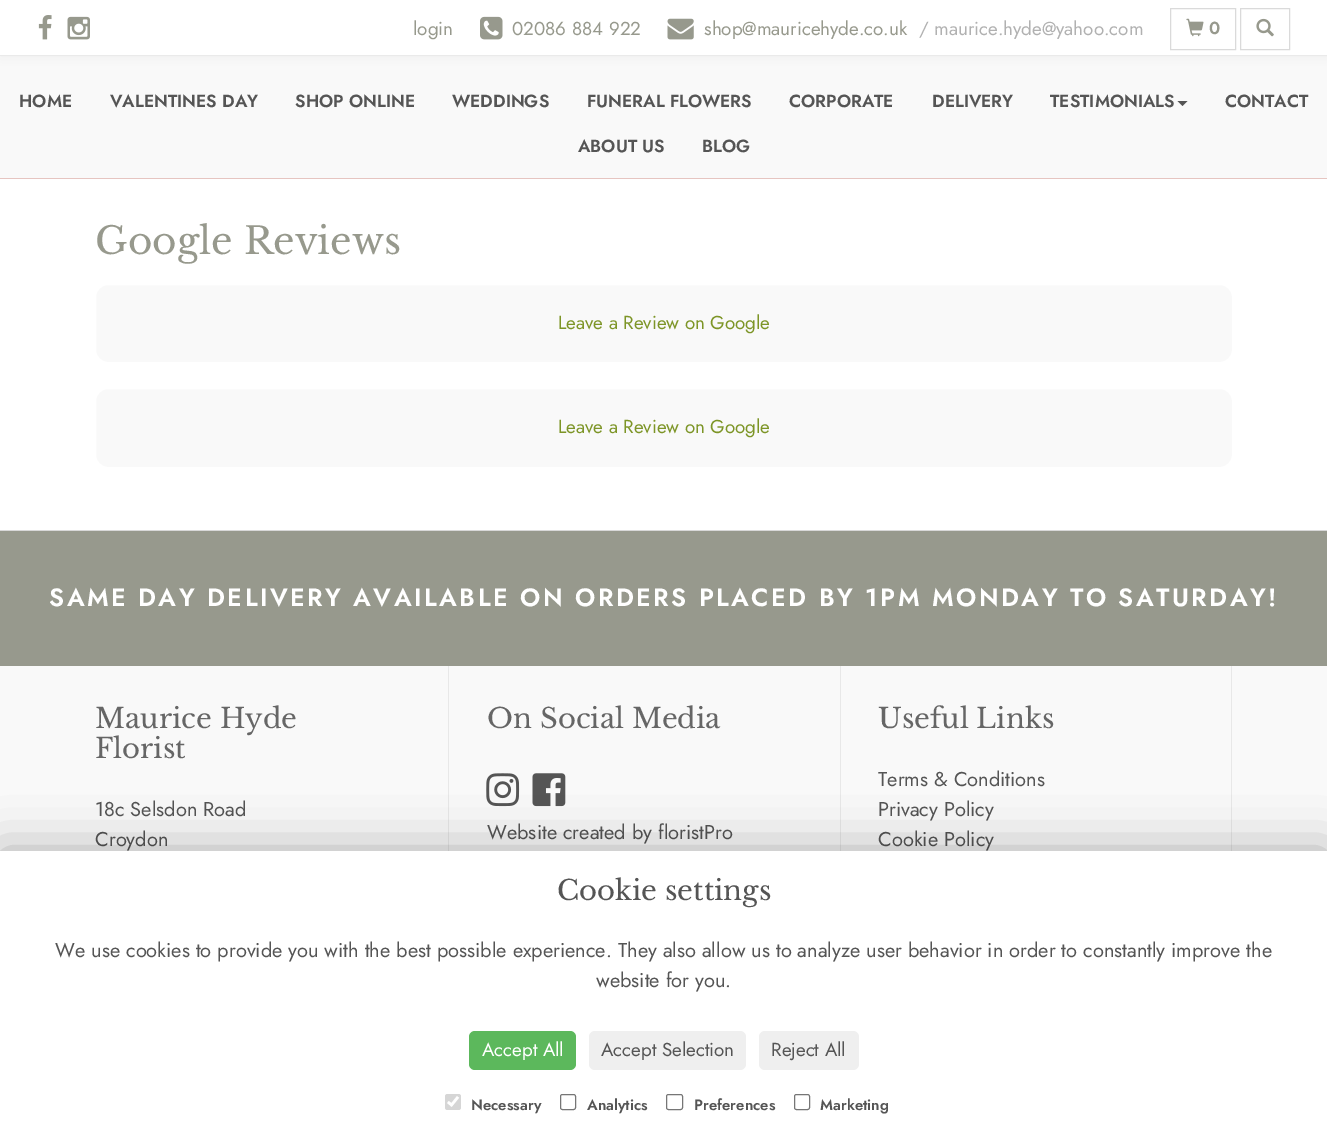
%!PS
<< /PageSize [1327 1147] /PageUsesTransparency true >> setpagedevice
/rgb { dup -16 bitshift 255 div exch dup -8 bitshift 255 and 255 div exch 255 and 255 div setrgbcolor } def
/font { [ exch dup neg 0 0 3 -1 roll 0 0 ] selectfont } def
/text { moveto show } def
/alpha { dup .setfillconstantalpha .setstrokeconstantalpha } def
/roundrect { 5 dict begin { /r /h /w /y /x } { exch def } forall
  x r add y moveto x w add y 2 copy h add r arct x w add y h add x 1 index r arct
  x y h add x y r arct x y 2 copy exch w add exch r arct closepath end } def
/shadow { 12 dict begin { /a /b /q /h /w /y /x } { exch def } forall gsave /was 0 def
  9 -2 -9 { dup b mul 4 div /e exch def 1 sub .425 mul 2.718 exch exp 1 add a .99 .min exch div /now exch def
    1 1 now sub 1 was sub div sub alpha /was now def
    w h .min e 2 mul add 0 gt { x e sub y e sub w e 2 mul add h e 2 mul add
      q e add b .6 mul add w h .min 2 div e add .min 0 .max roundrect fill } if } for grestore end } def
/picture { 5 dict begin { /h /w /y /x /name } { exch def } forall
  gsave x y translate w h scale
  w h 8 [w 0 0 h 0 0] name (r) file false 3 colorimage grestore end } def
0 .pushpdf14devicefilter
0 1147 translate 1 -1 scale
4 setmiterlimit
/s1 { /Jost-Regular 18.75 font 16#97998D rgb } def
/s2 { /Jost-Regular 18.75 font 16#B1B1B1 rgb } def
/s3 { /Jost-SemiBold 17.5 font 16#97998D rgb } def
/s4 { /Jost-SemiBold 17.5 font 16#555555 rgb } def
/s5 { /LibreBaskerville-Regular 37.5 font 16#97998D rgb } def
/s6 { /Jost-Regular 18.75 font 16#7D9527 rgb } def
/s7 { /LibreBaskerville-Regular 27.5 font 16#666666 rgb } def
/s8 { /Jost-Regular 20 font 16#555555 rgb } def
/s9 { /LibreBaskerville-Regular 27.5 font 16#555555 rgb } def
/s10 { /Jost-Regular 18.75 font 16#FFFFFF rgb } def
/s11 { /Jost-Regular 18.75 font 16#555555 rgb } def
/s12 { /Jost-SemiBold 15 font 16#555555 rgb } def
16#FFFFFF rgb
0 0 1327 1147 rectfill
16#F9F9F9 rgb
0 56 1327 122 rectfill
16#ECECEC rgb
0 0 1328 56 0 6 1 shadow
16#FFFFFF rgb
0 0 1327 55 rectfill
16#EAEAEA rgb
0 55 1327 1 rectfill
(pic1.raw) 38 15 14 25 picture
(pic2.raw) 67 16 23 24 picture
s1
(login) 413 35 text
(pic3.raw) 480 16 23 24 picture
(02086 884 922) 512 35 text
(pic4.raw) 667 18 27 22 picture
(shop@mauricehyde.co.uk) 704 35 text
s2
(/ maurice.hyde@yahoo.com) 919 35 text
16#DADADA rgb
1170.5 8.5 65 41 rectstroke
(pic5.raw) 1186 18 18 19 picture
s3
(0) 1209 34 text
16#DADADA rgb
1240.5 8.5 49 41 rectstroke
(pic6.raw) 1256 18 18 19 picture
16#E6C5C1 rgb
0 178 1327 1 rectfill
s4
(HOME) 19 107 text
(VALENTINES DAY) 110 107 text
(SHOP ONLINE) 295 107 text
(WEDDINGS) 452 107 text
(FUNERAL FLOWERS) 587 107 text
(CORPORATE) 789 107 text
(DELIVERY) 932 107 text
(TESTIMONIALS) 1050 107 text
1177.5 101 moveto 1187.5 101 lineto 1182.5 106 lineto closepath fill
(CONTACT) 1225 107 text
(ABOUT US) 578 152 text
(BLOG) 702 152 text
s5
(Google Reviews) 95 254 text
16#F9F9F9 rgb
95.5 284.5 1137 78 12.5 roundrect gsave fill grestore
16#FFFFFF rgb
stroke
s6
(Leave a Review on Google) 558 329 text
16#F9F9F9 rgb
95.5 388.5 1137 79 12.5 roundrect gsave fill grestore
16#FFFFFF rgb
stroke
s6
(Leave a Review on Google) 558 433 text
16#D8D8D8 rgb
0 530 1327 1 rectfill
16#F9F9F9 rgb
0 666 1327 185 rectfill
16#97998D rgb
0 531 1327 135 rectfill
/Jost-SemiBold 25 font
16#FFFFFF rgb
49 606 moveto 2.5 0 (SAME DAY DELIVERY AVAILABLE ON ORDERS PLACED BY 1PM MONDAY TO SATURDAY!) ashow
16#E8E8E8 rgb
448 666 1 185 rectfill
s7
(Maurice Hyde) 95 728 text
(Florist) 95 758 text
s8
(18c Selsdon Road) 95 816 text
(Croydon) 95 846 text
16#E8E8E8 rgb
840 666 1 185 rectfill
s7
(On Social Media) 487 728 text
(pic7.raw) 486 773 34 34 picture
(pic8.raw) 532 773 34 34 picture
s8
(Website created by floristPro) 487 839 text
16#E8E8E8 rgb
1231 666 1 185 rectfill
s7
(Useful Links) 878 728 text
s8
(Terms & Conditions) 878 786 text
(Privacy Policy) 878 816 text
(Cookie Policy) 878 846 text
16#000000 rgb
0 851 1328 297 0 25 0.31 shadow
16#FFFFFF rgb
0 851 1327 296 rectfill
s9
(Cookie settings) 557 900 text
s8
(We use cookies to provide you with the best possible experience. They also allow us to analyze user behavior in order to constantly improve the) 55 957 text
(website for you.) 596 987 text
16#5CB85C rgb
469 1031 107 39 6 roundrect fill
s10
(Accept All) 482 1056 text
16#EFEFEF rgb
589 1031 157 39 6 roundrect fill
s11
(Accept Selection) 601 1056 text
16#EFEFEF rgb
759 1031 100 39 6 roundrect fill
s11
(Reject All) 771 1056 text
16#D6D6D6 rgb
445 1094 16 16 2.5 roundrect fill
16#FFFFFF rgb
2.6 setlinewidth
448 1102 moveto 451.5 1105 lineto 458 1097 lineto stroke
s12
(Necessary) 471 1110 text
16#767676 rgb
1 setlinewidth
560.5 1094.5 15 15 2 roundrect stroke
s12
(Analytics) 587 1110 text
16#767676 rgb
666.5 1094.5 16 15 2 roundrect stroke
s12
(Preferences) 694 1110 text
16#767676 rgb
794.5 1094.5 15 15 2 roundrect stroke
s12
(Marketing) 820 1110 text
.poppdf14devicefilter showpage
